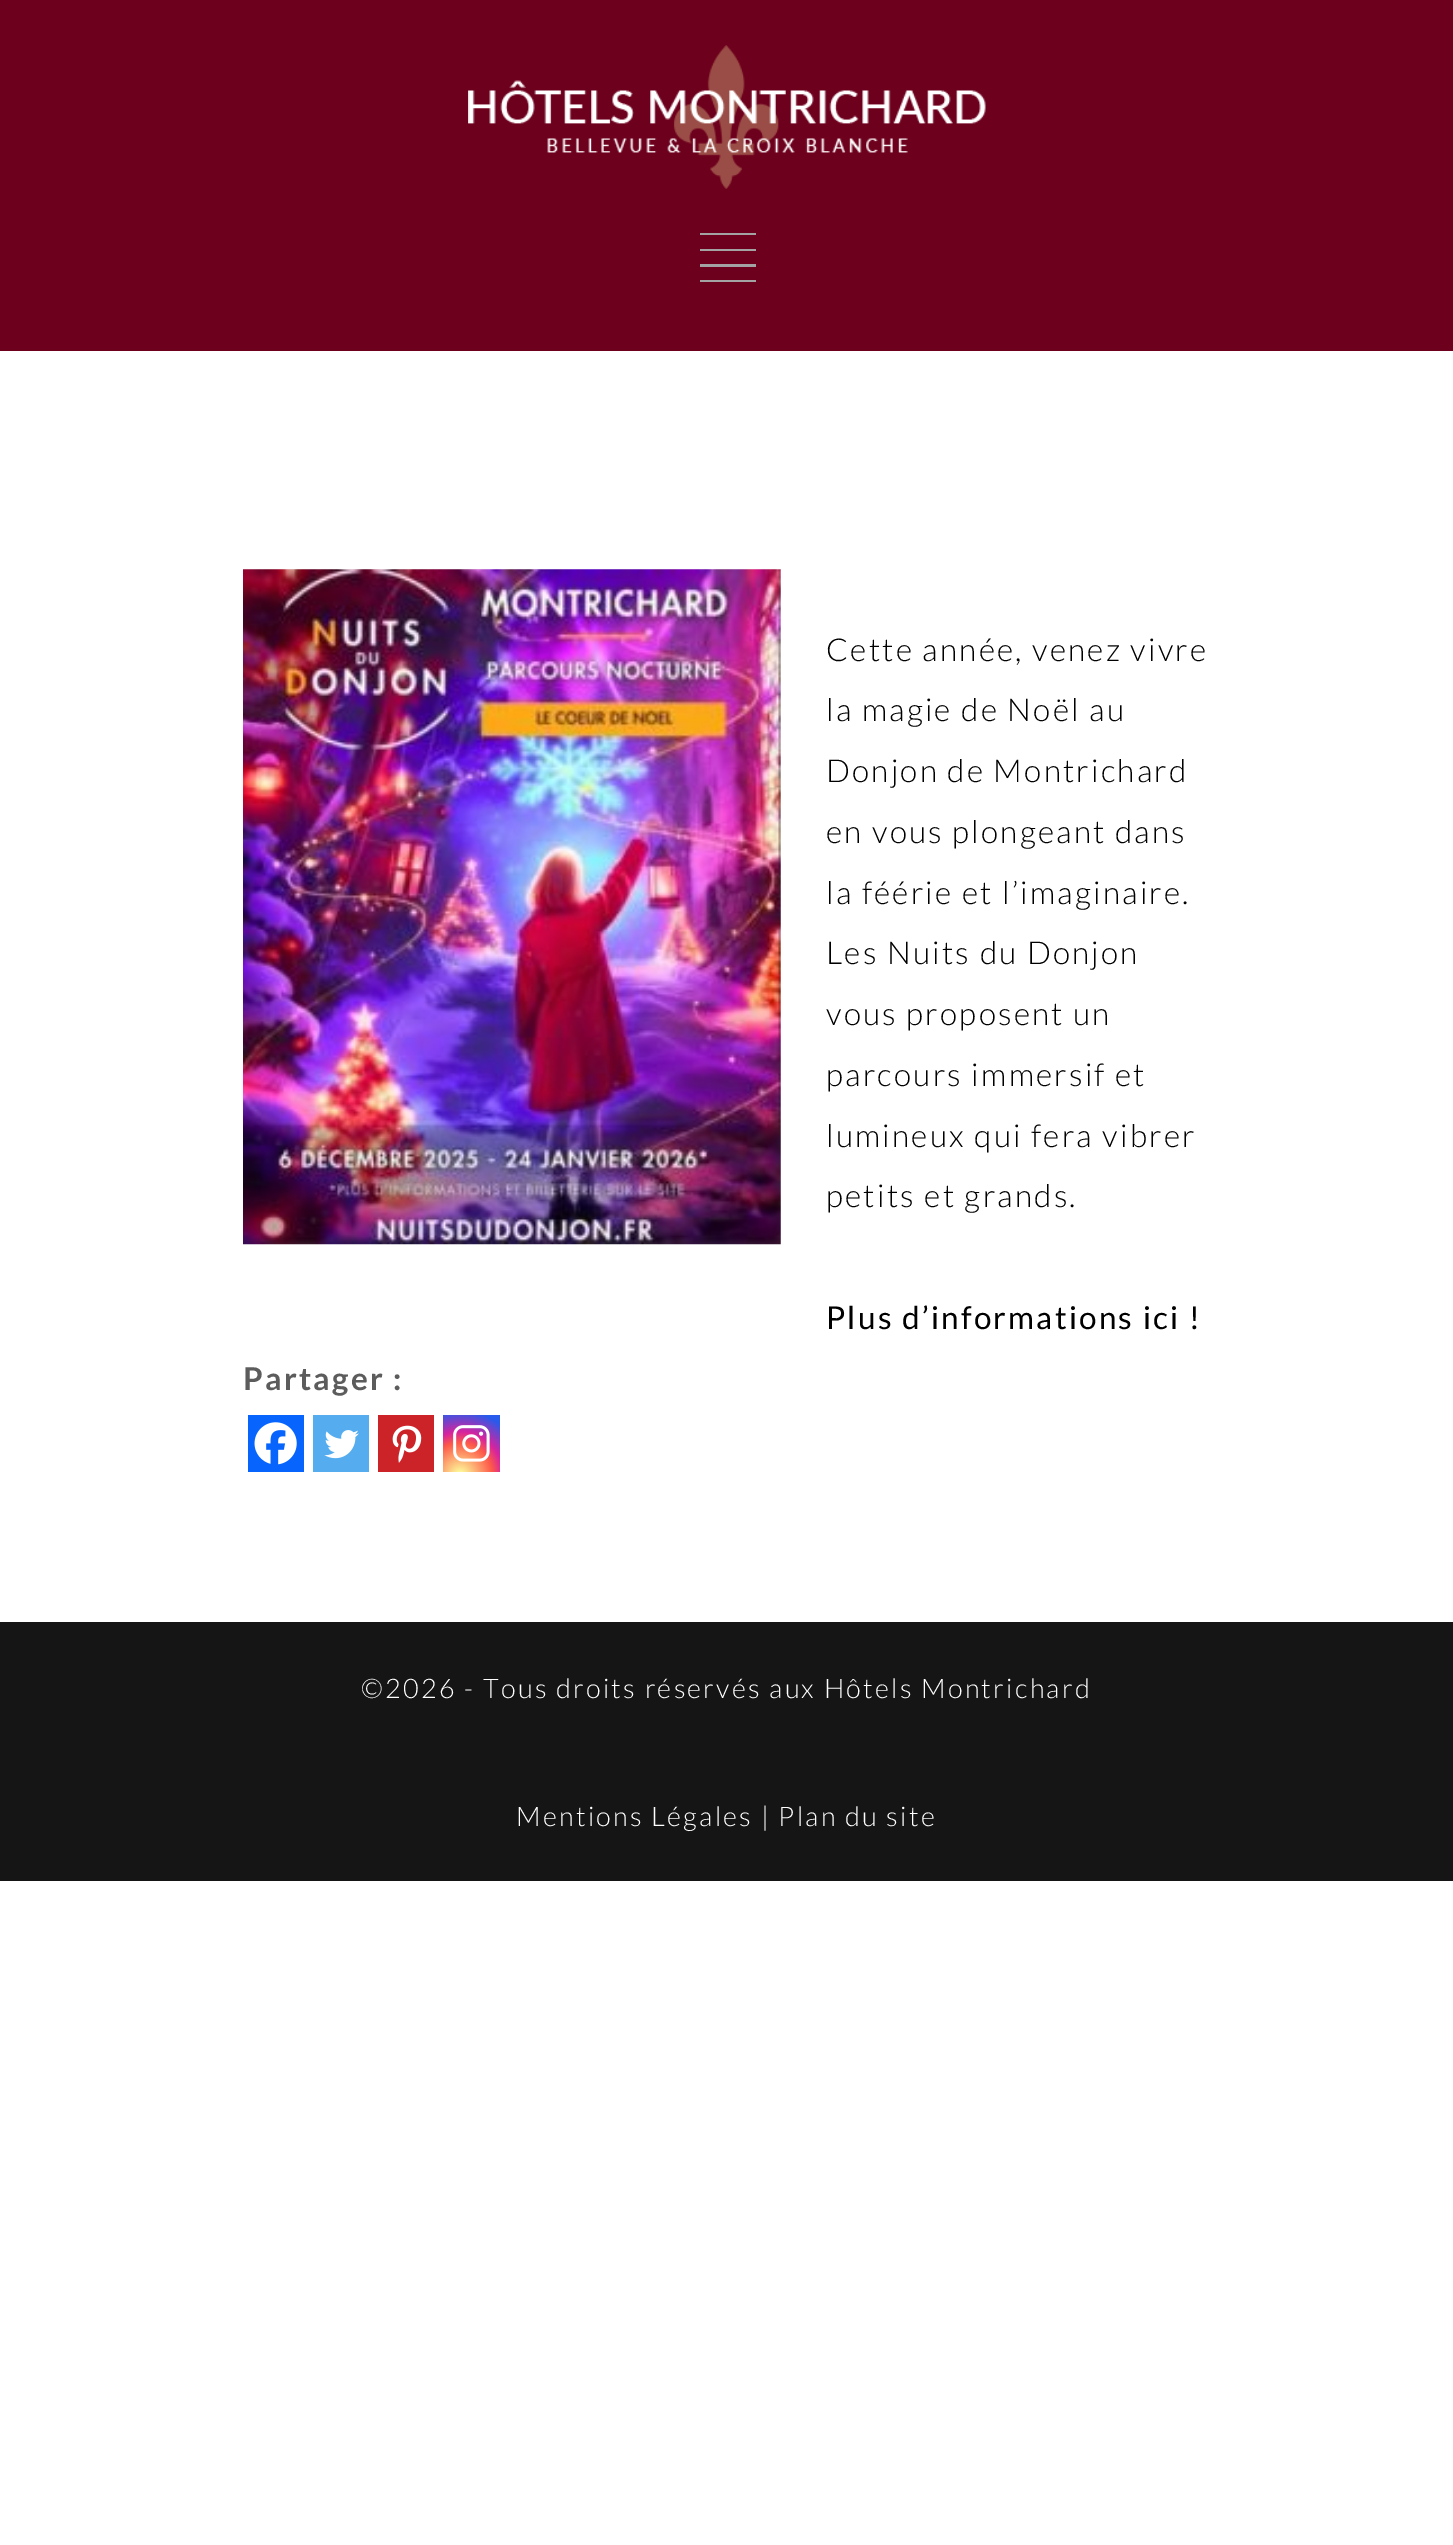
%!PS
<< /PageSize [1453 2545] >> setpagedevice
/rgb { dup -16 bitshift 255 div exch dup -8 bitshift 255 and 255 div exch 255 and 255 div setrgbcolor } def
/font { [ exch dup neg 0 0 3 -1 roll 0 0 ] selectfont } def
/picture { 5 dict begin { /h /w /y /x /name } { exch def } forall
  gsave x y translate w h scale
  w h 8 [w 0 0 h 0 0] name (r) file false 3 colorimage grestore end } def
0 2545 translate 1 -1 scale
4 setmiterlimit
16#FFFFFF rgb
0 0 1453 2545 rectfill
16#6D001D rgb
0 0 1453 351 rectfill
(pic1.raw) 468 45 518 144 picture
16#A3A3A3 rgb
700 233 56 2 rectfill
700 249 56 2 rectfill
700 264 56 3 rectfill
700 280 56 2 rectfill
(pic2.raw) 243 569 538 676 picture
/Lato-Light 31.5 font
16#000000 rgb
826 661 moveto 2.25 0 (Cette année, venez vivre) ashow
826 721 moveto 2.25 0 (la magie de Noël au) ashow
826 782 moveto 2.25 0 (Donjon de Montrichard) ashow
826 843 moveto 2.25 0 (en vous plongeant dans) ashow
826 904 moveto 2.25 0 (la féérie et l’imaginaire.) ashow
826 964 moveto 2.25 0 (Les Nuits du Donjon) ashow
826 1025 moveto 2.25 0 (vous proposent un) ashow
826 1086 moveto 2.25 0 (parcours immersif et) ashow
826 1147 moveto 2.25 0 (lumineux qui fera vibrer) ashow
826 1207 moveto 2.25 0 (petits et grands.) ashow
/Lato-Regular 31.5 font
826 1329 moveto 2.25 0 (Plus d’informations ici !) ashow
/Lato-Bold 31.5 font
16#5C5C5C rgb
243 1390 moveto 2.25 0 (Partager :) ashow
16#0765FE rgb
248 1415 56 57 rectfill
(pic3.raw) 254 1422 43 43 picture
16#55ACEE rgb
313 1415 56 57 rectfill
(pic4.raw) 324 1430 35 29 picture
16#CC2329 rgb
378 1415 56 57 rectfill
(pic5.raw) 392 1425 30 38 picture
gsave 443 1415 moveto 500 1415 lineto 500 1472 lineto 443 1472 lineto closepath clip newpath 460 1475 translate 72 72 scale
<< /ShadingType 3 /ColorSpace /DeviceRGB /Coords [0 0 0 0 0 1] /Extend [true true] /Function << /FunctionType 3 /Domain [0 1] /Functions [<< /FunctionType 2 /Domain [0 1] /C0 [0.992 0.957 0.592] /C1 [0.992 0.957 0.592] /N 1 >> << /FunctionType 2 /Domain [0 1] /C0 [0.992 0.957 0.592] /C1 [0.992 0.349 0.286] /N 1 >> << /FunctionType 2 /Domain [0 1] /C0 [0.992 0.349 0.286] /C1 [0.839 0.141 0.624] /N 1 >> << /FunctionType 2 /Domain [0 1] /C0 [0.839 0.141 0.624] /C1 [0.157 0.353 0.922] /N 1 >> << /FunctionType 2 /Domain [0 1] /C0 [0.157 0.353 0.922] /C1 [0.157 0.353 0.922] /N 1 >>] /Bounds [0.05 0.45 0.6 0.9] /Encode [0 1 0 1 0 1 0 1 0 1] >> >> shfill grestore
(pic6.raw) 453 1425 37 37 picture
16#151515 rgb
0 1622 1453 259 rectfill
/Lato-Light 27 font
16#FFFFFF rgb
361 1698 moveto 2.25 0 (©2026 - Tous droits réservés aux Hôtels Montrichard) ashow
516 1826 moveto 2.25 0 (Mentions Légales | Plan du site) ashow
showpage
